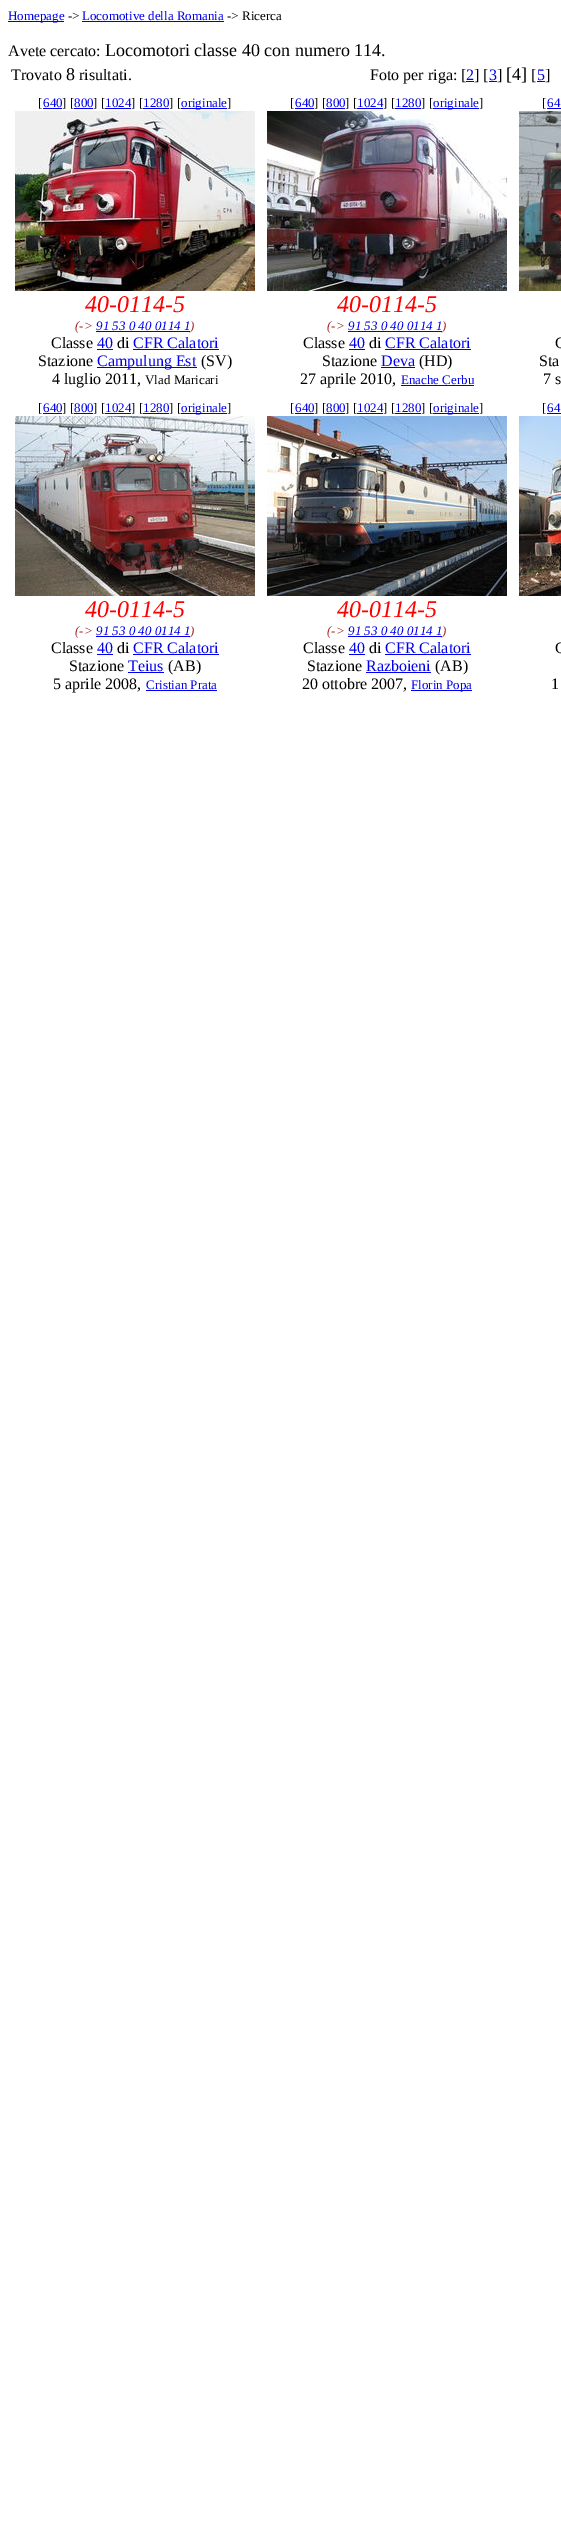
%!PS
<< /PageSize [561 2530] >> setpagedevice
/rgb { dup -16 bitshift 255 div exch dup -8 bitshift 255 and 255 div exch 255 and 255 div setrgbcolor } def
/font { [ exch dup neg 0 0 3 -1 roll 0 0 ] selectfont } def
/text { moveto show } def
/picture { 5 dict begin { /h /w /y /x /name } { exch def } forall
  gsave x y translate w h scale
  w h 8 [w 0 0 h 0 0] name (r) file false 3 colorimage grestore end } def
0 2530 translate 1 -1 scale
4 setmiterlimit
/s1 { /LiberationSerif-Regular 13 font 16#0000EE rgb } def
/s2 { /LiberationSerif-Regular 13 font 16#000000 rgb } def
/s3 { /LiberationSerif-Regular 16 font 16#000000 rgb } def
/s4 { /LiberationSerif-Regular 18 font 16#000000 rgb } def
/s5 { /LiberationSerif-Regular 16 font 16#0000EE rgb } def
/s6 { /LiberationSerif-Italic 24 font 16#FF0000 rgb } def
/s7 { /LiberationSerif-Italic 13 font 16#A52A2A rgb } def
/s8 { /LiberationSerif-Italic 13 font 16#0000EE rgb } def
16#FFFFFF rgb
0 0 561 2530 rectfill
16#0000EE rgb
8 21 56 1 rectfill
s1
(Homepage) 8 20 text
s2
(->) 68 20 text
s1
(Locomotive della Romania) 82 20 text
82 21 142 1 rectfill
s2
(-> Ricerca) 227 20 text
s3
(Avete cercato:) 8 56 text
s4
(Locomotori classe 40 con numero 114.) 105 56 text
s3
(Trovato) 11 80 text
s4
(8) 66 80 text
s3
(risultati.) 79 80 text
(Foto per riga: [) 370 80 text
s5
(2) 466 80 text
466 81 8 1 rectfill
s3
(] [) 474 80 text
s5
(3) 489 80 text
489 81 8 1 rectfill
s3
(]) 497 80 text
s4
([4]) 506 80 text
s3
([) 531 80 text
s5
(5) 537 80 text
537 81 8 1 rectfill
s3
(]) 545 80 text
s2
([) 38 107 text
16#0000EE rgb
43 108 19 1 rectfill
(640) 43 107 text
s2
(] [) 62 107 text
16#0000EE rgb
74 108 19 1 rectfill
(800) 74 107 text
s2
(] [) 93 107 text
16#0000EE rgb
105 108 26 1 rectfill
(1024) 105 107 text
s2
(] [) 131 107 text
16#0000EE rgb
143 108 26 1 rectfill
(1280) 143 107 text
s2
(] [) 169 107 text
16#0000EE rgb
181 108 46 1 rectfill
(originale) 181 107 text
s2
(]) 227 107 text
(pic1.raw) 15 111 240 180 picture
s6
(40-0114-5) 85 312 text
s7
(\(->) 75 330 text
s8
(91 53 0 40 0114 1) 96 330 text
96 331 94 1 rectfill
s7
(\)) 190 330 text
s3
(Classe) 51 348 text
s5
(40) 97 348 text
97 349 16 1 rectfill
s3
(di) 117 348 text
s5
(CFR Calatori) 133 348 text
133 349 86 1 rectfill
s3
(Stazione) 38 366 text
16#0000EE rgb
97 367 100 1 rectfill
(Campulung Est) 97 366 text
s3
(\(SV\)) 201 366 text
(4 luglio 2011,) 52 384 text
s2
(Vlad Maricari) 145 384 text
([) 290 107 text
16#0000EE rgb
295 108 19 1 rectfill
(640) 295 107 text
s2
(] [) 314 107 text
16#0000EE rgb
326 108 19 1 rectfill
(800) 326 107 text
s2
(] [) 345 107 text
16#0000EE rgb
357 108 26 1 rectfill
(1024) 357 107 text
s2
(] [) 383 107 text
16#0000EE rgb
395 108 26 1 rectfill
(1280) 395 107 text
s2
(] [) 421 107 text
16#0000EE rgb
433 108 46 1 rectfill
(originale) 433 107 text
s2
(]) 479 107 text
(pic2.raw) 267 111 240 180 picture
s6
(40-0114-5) 337 312 text
s7
(\(->) 327 330 text
s8
(91 53 0 40 0114 1) 348 330 text
348 331 94 1 rectfill
s7
(\)) 442 330 text
s3
(Classe) 303 348 text
s5
(40) 349 348 text
349 349 16 1 rectfill
s3
(di) 369 348 text
s5
(CFR Calatori) 385 348 text
385 349 86 1 rectfill
s3
(Stazione) 322 366 text
s5
(Deva) 381 366 text
381 367 34 1 rectfill
s3
(\(HD\)) 419 366 text
(27 aprile 2010,) 300 384 text
s1
(Enache Cerbu) 401 384 text
401 385 73 1 rectfill
s2
([) 542 107 text
16#0000EE rgb
547 108 14 1 rectfill
(64) 547 107 text
(pic3.raw) 519 111 42 180 picture
s3
(C) 555 348 text
(Sta) 539 366 text
(7 s) 543 384 text
s2
([) 38 412 text
16#0000EE rgb
43 413 19 1 rectfill
(640) 43 412 text
s2
(] [) 62 412 text
16#0000EE rgb
74 413 19 1 rectfill
(800) 74 412 text
s2
(] [) 93 412 text
16#0000EE rgb
105 413 26 1 rectfill
(1024) 105 412 text
s2
(] [) 131 412 text
16#0000EE rgb
143 413 26 1 rectfill
(1280) 143 412 text
s2
(] [) 169 412 text
16#0000EE rgb
181 413 46 1 rectfill
(originale) 181 412 text
s2
(]) 227 412 text
(pic4.raw) 15 416 240 180 picture
s6
(40-0114-5) 85 617 text
s7
(\(->) 75 635 text
s8
(91 53 0 40 0114 1) 96 635 text
96 636 94 1 rectfill
s7
(\)) 190 635 text
s3
(Classe) 51 653 text
s5
(40) 97 653 text
97 654 16 1 rectfill
s3
(di) 117 653 text
s5
(CFR Calatori) 133 653 text
133 654 86 1 rectfill
s3
(Stazione) 69 671 text
s5
(Teius) 128 671 text
128 672 36 1 rectfill
s3
(\(AB\)) 168 671 text
(5 aprile 2008,) 53 689 text
s1
(Cristian Prata) 146 689 text
146 690 71 1 rectfill
s2
([) 290 412 text
16#0000EE rgb
295 413 19 1 rectfill
(640) 295 412 text
s2
(] [) 314 412 text
16#0000EE rgb
326 413 19 1 rectfill
(800) 326 412 text
s2
(] [) 345 412 text
16#0000EE rgb
357 413 26 1 rectfill
(1024) 357 412 text
s2
(] [) 383 412 text
16#0000EE rgb
395 413 26 1 rectfill
(1280) 395 412 text
s2
(] [) 421 412 text
16#0000EE rgb
433 413 46 1 rectfill
(originale) 433 412 text
s2
(]) 479 412 text
(pic5.raw) 267 416 240 180 picture
s6
(40-0114-5) 337 617 text
s7
(\(->) 327 635 text
s8
(91 53 0 40 0114 1) 348 635 text
348 636 94 1 rectfill
s7
(\)) 442 635 text
s3
(Classe) 303 653 text
s5
(40) 349 653 text
349 654 16 1 rectfill
s3
(di) 369 653 text
s5
(CFR Calatori) 385 653 text
385 654 86 1 rectfill
s3
(Stazione) 307 671 text
s5
(Razboieni) 366 671 text
366 672 65 1 rectfill
s3
(\(AB\)) 435 671 text
(20 ottobre 2007,) 302 689 text
16#0000EE rgb
411 690 61 1 rectfill
s1
(Florin Popa) 411 689 text
s2
([) 542 412 text
16#0000EE rgb
547 413 14 1 rectfill
(64) 547 412 text
(pic6.raw) 519 416 42 180 picture
s3
(C) 555 653 text
(1) 551 689 text
showpage
